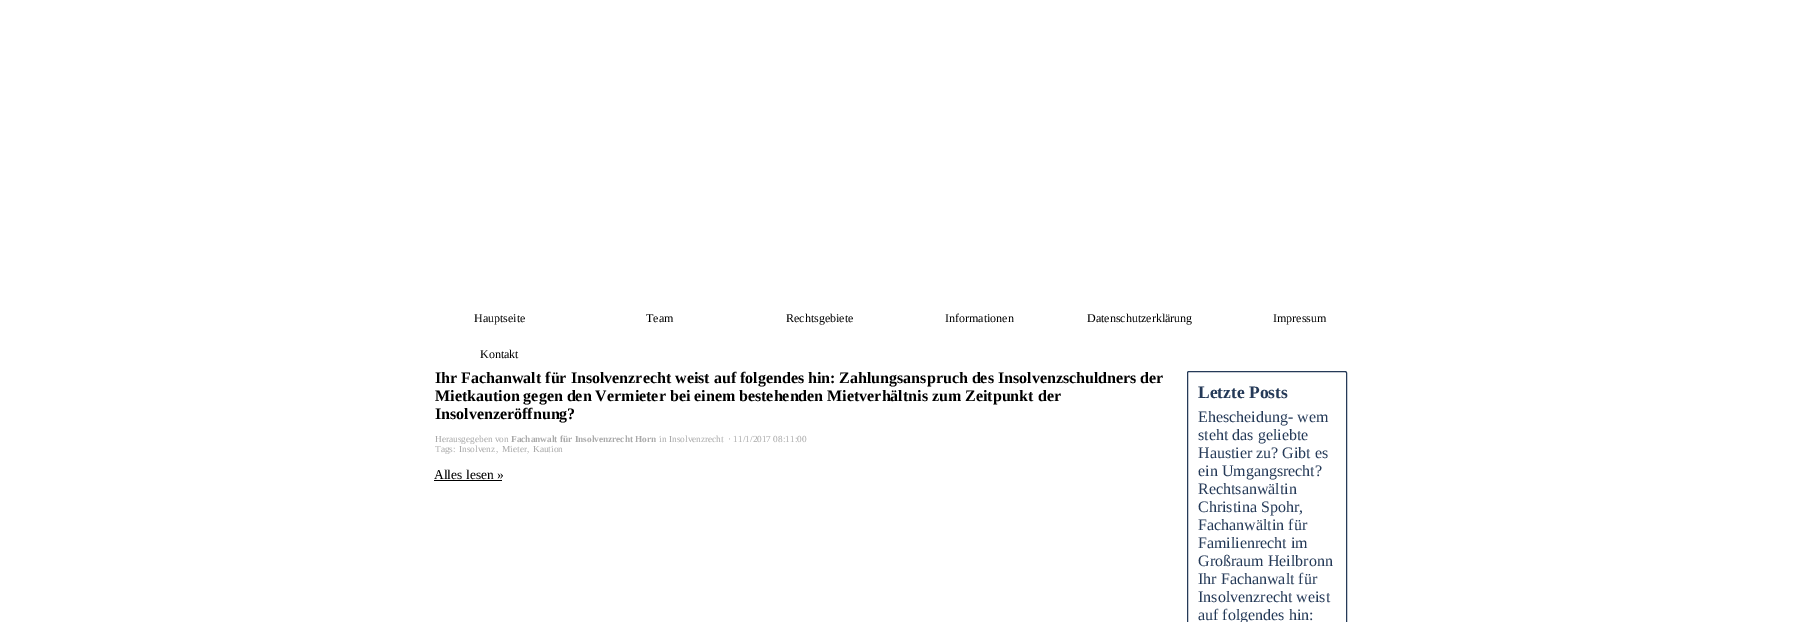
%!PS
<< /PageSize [1799 622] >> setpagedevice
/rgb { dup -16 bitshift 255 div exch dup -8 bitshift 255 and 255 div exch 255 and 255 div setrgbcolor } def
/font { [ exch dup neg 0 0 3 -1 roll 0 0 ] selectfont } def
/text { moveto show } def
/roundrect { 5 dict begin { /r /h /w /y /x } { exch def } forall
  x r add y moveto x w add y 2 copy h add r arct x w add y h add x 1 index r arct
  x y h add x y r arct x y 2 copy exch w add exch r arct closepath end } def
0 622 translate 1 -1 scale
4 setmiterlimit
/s1 { /LiberationSerif-Regular 12 font 16#000000 rgb } def
/s2 { /LiberationSerif-Bold 16 font 16#000000 rgb } def
/s3 { /LiberationSerif-Regular 9.3 font 16#A9A9A9 rgb } def
/s4 { /LiberationSerif-Bold 9.3 font 16#A9A9A9 rgb } def
/s5 { /LiberationSerif-Regular 13.5 font 16#000000 rgb } def
/s6 { /LiberationSerif-Bold 17.5 font 16#253A58 rgb } def
/s7 { /LiberationSerif-Regular 16 font 16#253A58 rgb } def
16#FFFFFF rgb
0 0 1799 622 rectfill
s1
(Hauptseite) 474 322 text
(Team) 646 322 text
(Rechtsgebiete) 786 322 text
(Informationen) 945 322 text
(Datenschutzerklärung) 1087 322 text
(Impressum) 1273 322 text
(Kontakt) 480 358 text
s2
(Ihr Fachanwalt für Insolvenzrecht weist auf folgendes hin: Zahlungsanspruch des Insolvenzschuldners der) 435 383 text
(Mietkaution gegen den Vermieter bei einem bestehenden Mietverhältnis zum Zeitpunkt der) 435 401 text
(Insolvenzeröffnung?) 435 419 text
s3
(Herausgegeben von) 435 442 text
s4
(Fachanwalt für Insolvenzrecht Horn) 511 442 text
s3
(in) 659 442 text
(Insolvenzrecht) 669 442 text
(· 11/1/2017 08:11:00) 728 442 text
(Tags:) 435 452 text
(Insolvenz) 459 452 text
(,) 496 452 text
(Mieter) 502 452 text
(,) 527 452 text
(Kaution) 533 452 text
s5
(Alles lesen ») 434 479 text
434 480 68 1 rectfill
16#253A58 rgb
1187.5 371.5 159 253 1.5 roundrect stroke
s6
(Letzte Posts) 1198 398 text
s7
(Ehescheidung- wem) 1198 422 text
(steht das geliebte) 1198 440 text
(Haustier zu? Gibt es) 1198 458 text
(ein Umgangsrecht?) 1198 476 text
(Rechtsanwältin) 1198 494 text
(Christina Spohr,) 1198 512 text
(Fachanwältin für) 1198 530 text
(Familienrecht im) 1198 548 text
(Großraum Heilbronn) 1198 566 text
(Ihr Fachanwalt für) 1198 584 text
(Insolvenzrecht weist) 1198 602 text
(auf folgendes hin:) 1198 620 text
showpage
